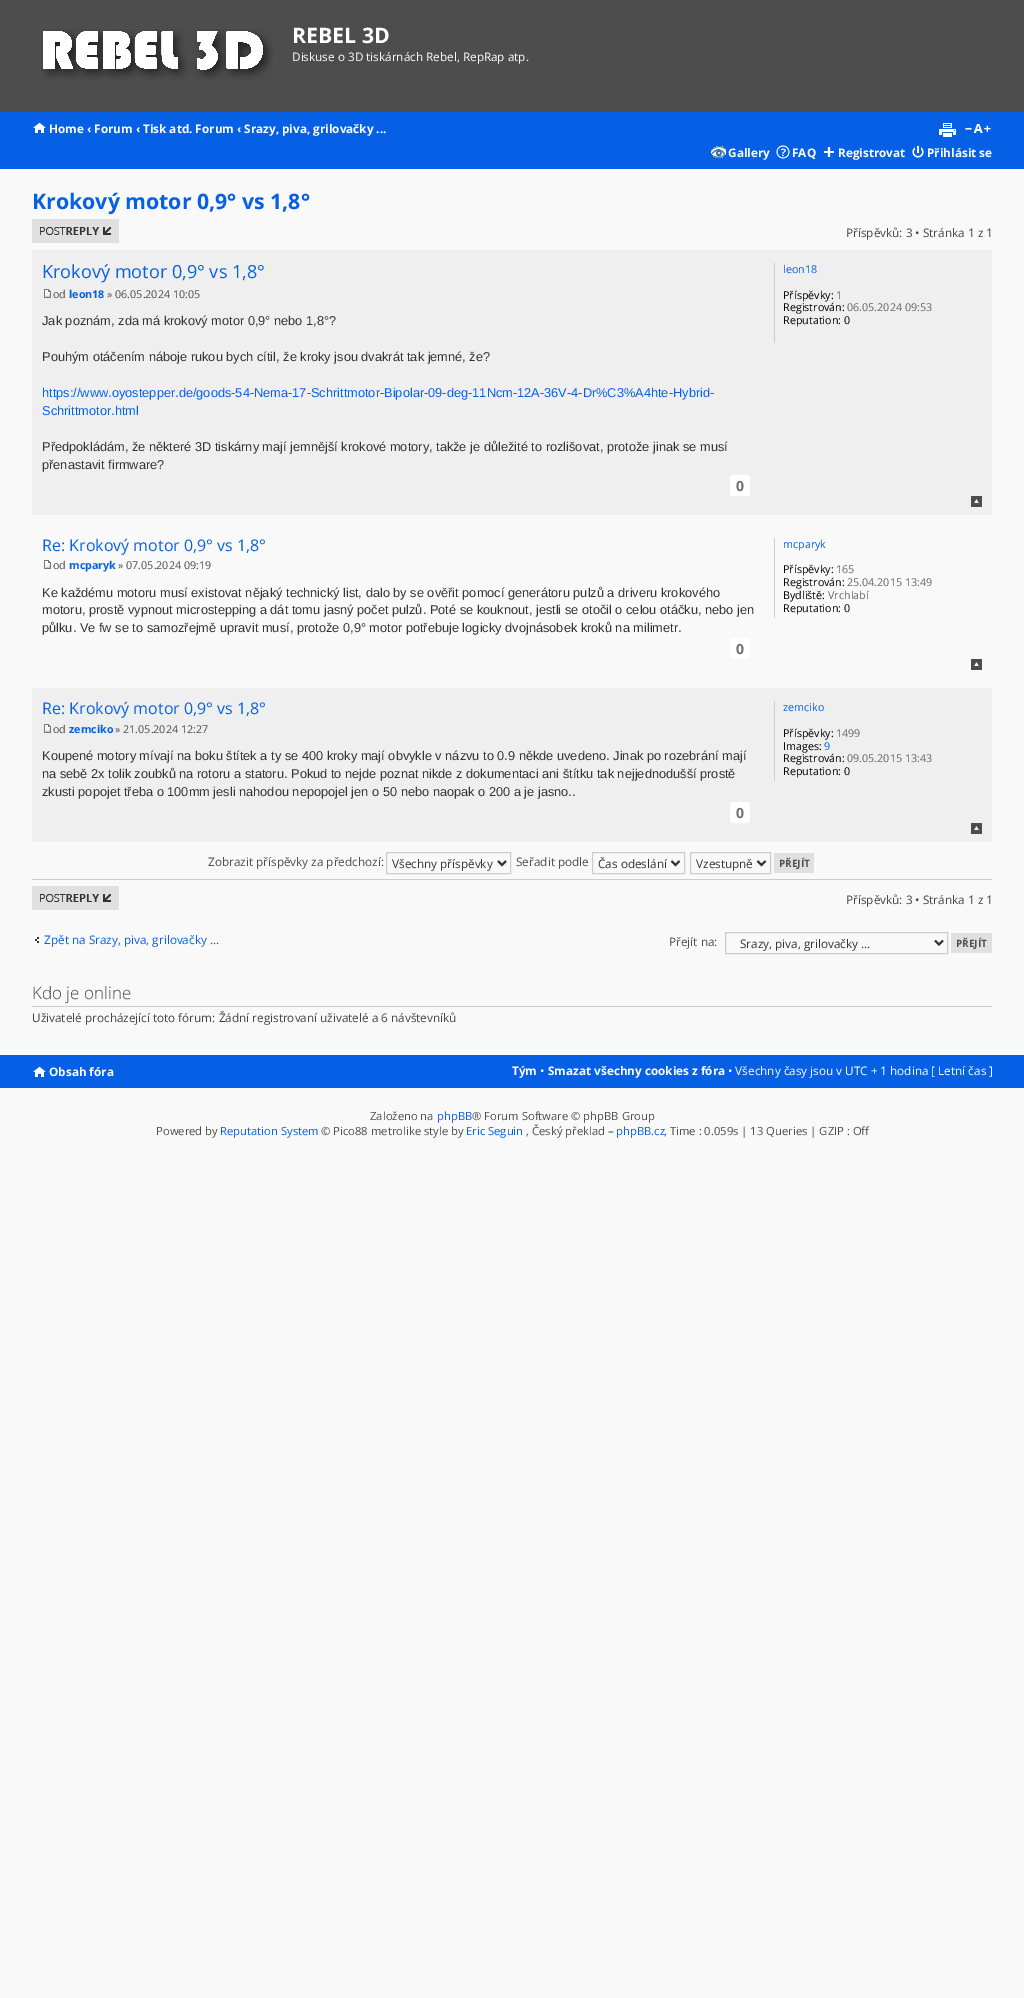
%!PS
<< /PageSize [1024 1998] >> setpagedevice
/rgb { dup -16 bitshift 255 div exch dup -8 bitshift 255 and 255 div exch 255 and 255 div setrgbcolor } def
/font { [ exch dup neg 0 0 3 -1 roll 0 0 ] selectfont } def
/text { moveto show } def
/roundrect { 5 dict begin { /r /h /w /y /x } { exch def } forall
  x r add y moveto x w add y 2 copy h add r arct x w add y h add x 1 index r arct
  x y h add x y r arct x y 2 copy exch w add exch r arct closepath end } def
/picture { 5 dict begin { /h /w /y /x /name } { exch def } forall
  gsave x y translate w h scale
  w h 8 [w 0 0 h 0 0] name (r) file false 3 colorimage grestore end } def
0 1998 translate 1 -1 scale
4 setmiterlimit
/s1 { /OpenSans-Bold 21.3 font 16#FFFFFF rgb } def
/s2 { /OpenSans-Regular 11.75 font 16#FFFFFF rgb } def
/s3 { /OpenSans-Bold 11.75 font 16#FFFFFF rgb } def
/s4 { /OpenSans-Bold 21.3 font 16#0660E6 rgb } def
/s5 { /OpenSans-Regular 11.75 font 16#444444 rgb } def
/s6 { /OpenSans-Regular 18.1 font 16#0660E6 rgb } def
/s7 { /OpenSans-Regular 10.75 font 16#4D4D4D rgb } def
/s8 { /OpenSans-Bold 10.75 font 16#0660E6 rgb } def
/s9 { /LiberationSans-Regular 12.8 font 16#333333 rgb } def
/s10 { /LiberationSans-Regular 12.8 font 16#0660E6 rgb } def
/s11 { /OpenSans-Bold 14 font 16#6E6E6E rgb } def
/s12 { /OpenSans-Regular 10.75 font 16#0660E6 rgb } def
/s13 { /OpenSans-Regular 10.75 font 16#000000 rgb } def
/s14 { /OpenSans-Regular 10.75 font 16#666666 rgb } def
/s15 { /OpenSans-Regular 16 font 16#0660E6 rgb } def
/s16 { /OpenSans-Regular 11.75 font 16#4D4D4D rgb } def
/s17 { /OpenSans-Regular 11.75 font 16#333333 rgb } def
/s18 { /OpenSans-Bold 10 font 16#4D4D4D rgb } def
/s19 { /OpenSans-Regular 11.75 font 16#0660E6 rgb } def
/s20 { /OpenSans-Light 17 font 16#444444 rgb } def
/s21 { /OpenSans-Regular 11.25 font 16#4D4D4D rgb } def
/s22 { /OpenSans-Regular 11.25 font 16#0660E6 rgb } def
16#F9F9F9 rgb
0 0 1024 1998 rectfill
16#4D4D4D rgb
0 0 1024 112 rectfill
(pic1.raw) 41 29 232 51 picture
s1
(REBEL 3D) 292 43 text
s2
(Diskuse o 3D tiskárnách Rebel, RepRap atp.) 292 61 text
16#0660E6 rgb
0 112 1024 57 rectfill
(pic2.raw) 33 122 13 11 picture
s3
(Home ‹ Forum ‹ Tisk atd. Forum ‹ Srazy, piva, grilovačky ...) 49 133 text
(pic3.raw) 939 123 17 14 picture
(pic4.raw) 965 124 26 9 picture
(pic5.raw) 711 146 15 12 picture
(Gallery) 728 157 text
(pic6.raw) 776 145 14 14 picture
(FAQ) 792 157 text
(pic7.raw) 824 147 10 10 picture
(Registrovat) 838 157 text
(pic8.raw) 912 146 12 12 picture
(Přihlásit se) 927 157 text
s4
(Krokový motor 0,9° vs 1,8°) 32 209 text
(pic9.raw) 32 219 87 24 picture
s5
(Příspěvků: 3 • Stránka 1 z 1) 846 237 text
16#EFEFEF rgb
32 250 960 265 rectfill
s6
(Krokový motor 0,9° vs 1,8°) 42 278 text
(pic10.raw) 44 289 7 9 picture
s7
(od) 53 298 text
s8
(leon18) 69 298 text
s7
(» 06.05.2024 10:05) 107 298 text
s9
(Jak poznám, zda má krokový motor 0,9° nebo 1,8°?) 42 325 text
(Pouhým otáčením náboje rukou bych cítil, že kroky jsou dvakrát tak jemné, že?) 42 361 text
s10
(https://www.oyostepper.de/goods-54-Nema-17-Schrittmotor-Bipolar-09-deg-11Ncm-12A-36V-4-Dr%C3%A4hte-Hybrid-) 42 397 text
(Schrittmotor.html) 42 415 text
s9
(Předpokládám, že některé 3D tiskárny mají jemnější krokové motory, takže je důležité to rozlišovat, protože jinak se musí) 42 451 text
(přenastavit firmware?) 42 469 text
16#FFFFFF rgb
730 475 20 21 3 roundrect fill
s11
(0) 736 491 text
16#CCCCCC rgb
774 263 1 80 rectfill
s12
(leon18) 783 273 text
s13
(Příspěvky:) 783 299 text
s14
(1) 836 299 text
s13
(Registrován:) 783 311 text
s14
(06.05.2024 09:53) 847 311 text
s13
(Reputation: 0) 783 324 text
(pic11.raw) 971 496 11 11 picture
s15
(Re: Krokový motor 0,9° vs 1,8°) 42 551 text
(pic12.raw) 44 560 7 9 picture
s7
(od) 53 569 text
s8
(mcparyk) 69 569 text
s7
(» 07.05.2024 09:19) 118 569 text
s9
(Ke každému motoru musí existovat nějaký technický list, dalo by se ověřit pomocí generátoru pulzů a driveru krokového) 42 597 text
(motoru, prostě vypnout microstepping a dát tomu jasný počet pulzů. Poté se kouknout, jestli se otočil o celou otáčku, nebo jen) 42 614 text
(půlku. Ve fw se to samozřejmě upravit musí, protože 0,9° motor potřebuje logicky dvojnásobek kroků na milimetr.) 42 632 text
16#FFFFFF rgb
730 638 20 21 3 roundrect fill
s11
(0) 736 654 text
16#CCCCCC rgb
774 538 1 80 rectfill
s12
(mcparyk) 783 548 text
s13
(Příspěvky:) 783 573 text
s14
(165) 836 573 text
s13
(Registrován:) 783 586 text
s14
(25.04.2015 13:49) 847 586 text
s13
(Bydliště:) 783 599 text
s14
(Vrchlabí) 828 599 text
s13
(Reputation: 0) 783 612 text
(pic11.raw) 971 659 11 11 picture
16#EFEFEF rgb
32 688 960 154 rectfill
s15
(Re: Krokový motor 0,9° vs 1,8°) 42 714 text
(pic10.raw) 44 724 7 9 picture
s7
(od) 53 733 text
s8
(zemciko) 69 733 text
s7
(» 21.05.2024 12:27) 115 733 text
s9
(Koupené motory mívají na boku štítek a ty se 400 kroky mají obvykle v názvu to 0.9 někde uvedeno. Jinak po rozebrání mají) 42 760 text
(na sebě 2x tolik zoubků na rotoru a statoru. Pokud to nejde poznat nikde z dokumentaci ani štítku tak nejjednodušší prostě) 42 778 text
(zkusti popojet třeba o 100mm jesli nahodou nepopojel jen o 50 nebo naopak o 200 a je jasno..) 42 796 text
16#FFFFFF rgb
730 802 20 21 3 roundrect fill
s11
(0) 736 818 text
16#CCCCCC rgb
774 701 1 80 rectfill
s12
(zemciko) 783 711 text
s13
(Příspěvky:) 783 737 text
s14
(1499) 836 737 text
s13
(Images:) 783 750 text
s12
(9) 824 750 text
s13
(Registrován:) 783 762 text
s14
(09.05.2015 13:43) 847 762 text
s13
(Reputation: 0) 783 775 text
(pic11.raw) 971 823 11 11 picture
s16
(Zobrazit příspěvky za předchozí:) 208 866 text
16#CCCCCC rgb
386.5 852.5 124 21 rectstroke
16#333333 rgb
2 setlinewidth
498 861 moveto 502 865 lineto 506 861 lineto stroke
(Všechny příspěvky) 392 868 text
s16
(Seřadit podle) 516 866 text
16#CCCCCC rgb
1 setlinewidth
592.5 852.5 92 21 rectstroke
16#333333 rgb
2 setlinewidth
671.5 861 moveto 675.5 865 lineto 679.5 861 lineto stroke
(Čas odeslání) 598 868 text
16#CCCCCC rgb
1 setlinewidth
690.5 852.5 80 21 rectstroke
16#333333 rgb
2 setlinewidth
757.5 861 moveto 761.5 865 lineto 765.5 861 lineto stroke
(Vzestupně) 696 868 text
16#E0E0E0 rgb
774 853 40 20 rectfill
s18
(PŘEJÍT) 779 867 text
16#CCCCCC rgb
32 879 960 1 rectfill
(pic9.raw) 32 886 87 24 picture
s5
(Příspěvků: 3 • Stránka 1 z 1) 846 904 text
(pic13.raw) 35 937 4 6 picture
s19
(Zpět na Srazy, piva, grilovačky ...) 44 944 text
s16
(Přejít na:) 669 946 text
16#CCCCCC rgb
1 setlinewidth
725.5 932.5 222 21 rectstroke
16#333333 rgb
2 setlinewidth
935 940.5 moveto 939 944.5 lineto 943 940.5 lineto stroke
(Srazy, piva, grilovačky ...) 740 948 text
16#E0E0E0 rgb
951 933 41 20 rectfill
s18
(PŘEJÍT) 956 947 text
16#CCCCCC rgb
32 1006 960 1 rectfill
s20
(Kdo je online) 32 999 text
s5
(Uživatelé procházející toto fórum: Žádní registrovaní uživatelé a 6 návštevníků) 32 1022 text
16#0660E6 rgb
0 1055 1024 33 rectfill
(pic2.raw) 33 1066 13 11 picture
s3
(Obsah fóra) 49 1076 text
(Tým) 512 1075 text
s2
(•) 540 1075 text
s3
(Smazat všechny cookies z fóra) 548 1075 text
s2
(• Všechny časy jsou v UTC + 1 hodina [ Letní čas ]) 728 1075 text
s21
(Založeno na) 370 1120 text
s22
(phpBB) 437 1120 text
s21
(® Forum Software © phpBB Group) 472 1120 text
(Powered by) 156 1135 text
s22
(Reputation System) 220 1135 text
s21
(© Pico88 metrolike style by) 321 1135 text
s22
(Eric Seguin) 466 1135 text
s21
(, Český překlad –) 526 1135 text
s22
(phpBB.cz) 616 1135 text
s21
(, Time : 0.059s | 13 Queries | GZIP : Off) 664 1135 text
showpage
